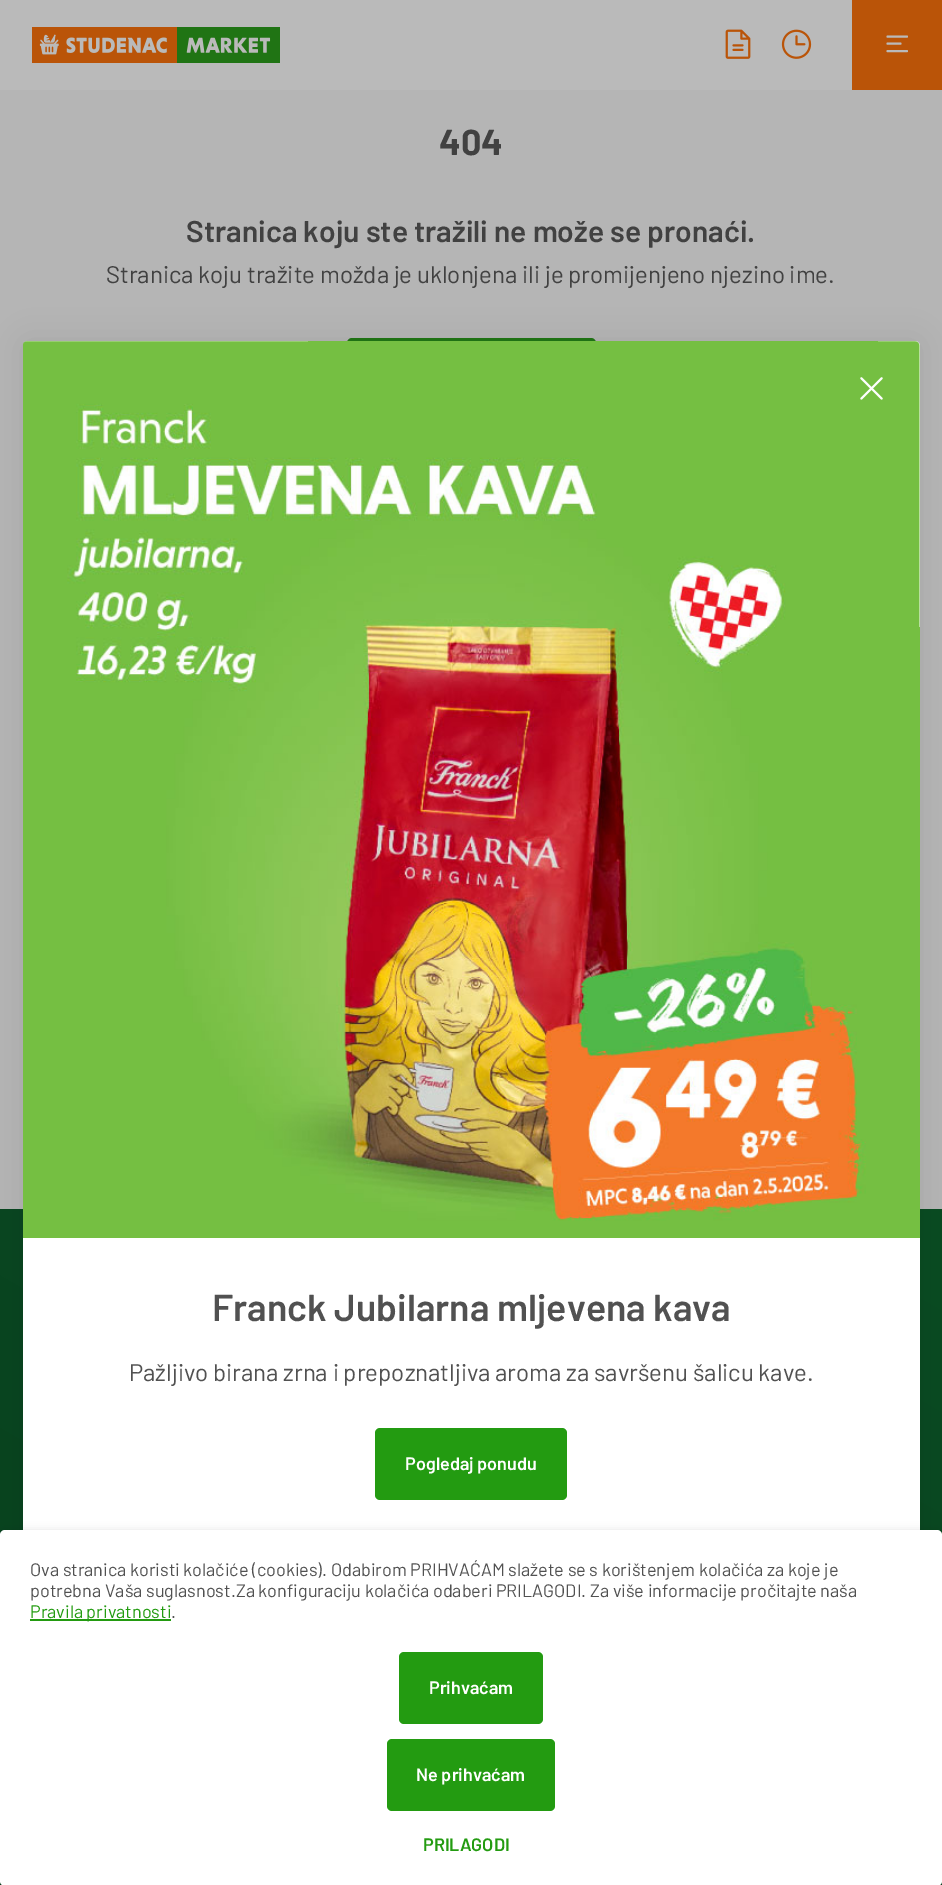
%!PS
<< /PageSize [942 1885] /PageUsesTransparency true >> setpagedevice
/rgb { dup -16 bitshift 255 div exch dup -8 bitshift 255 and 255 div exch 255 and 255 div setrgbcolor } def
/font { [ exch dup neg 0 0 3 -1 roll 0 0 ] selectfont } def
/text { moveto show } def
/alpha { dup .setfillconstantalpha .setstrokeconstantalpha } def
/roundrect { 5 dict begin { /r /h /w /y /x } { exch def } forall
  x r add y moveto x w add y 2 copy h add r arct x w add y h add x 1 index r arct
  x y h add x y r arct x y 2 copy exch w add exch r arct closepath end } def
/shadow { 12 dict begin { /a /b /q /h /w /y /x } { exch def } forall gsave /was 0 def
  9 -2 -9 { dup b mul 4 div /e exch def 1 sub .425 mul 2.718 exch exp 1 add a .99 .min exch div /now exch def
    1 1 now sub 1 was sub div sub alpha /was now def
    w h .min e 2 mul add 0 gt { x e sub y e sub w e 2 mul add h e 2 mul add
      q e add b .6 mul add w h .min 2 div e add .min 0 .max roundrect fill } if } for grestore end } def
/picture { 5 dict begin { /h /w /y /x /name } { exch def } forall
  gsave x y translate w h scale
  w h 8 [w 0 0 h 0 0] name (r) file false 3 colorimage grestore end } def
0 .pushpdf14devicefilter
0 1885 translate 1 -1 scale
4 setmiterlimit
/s1 { /Barlow-Bold 36 font 16#414141 rgb } def
/s2 { /Barlow-SemiBold 30 font 16#414141 rgb } def
/s3 { /Barlow-Regular 24 font 16#414141 rgb } def
/s4 { /Barlow-SemiBold 37.5 font 16#515151 rgb } def
/s5 { /Barlow-Regular 24 font 16#515151 rgb } def
/s6 { /Barlow-SemiBold 18 font 16#FFFFFF rgb } def
/s7 { /Barlow-Regular 18 font 16#515151 rgb } def
/s8 { /Barlow-Regular 18 font 16#239B11 rgb } def
/s9 { /Barlow-SemiBold 18 font 16#239B11 rgb } def
16#B5B5B5 rgb
0 0 942 1885 rectfill
16#BABABA rgb
0 0 852 90 rectfill
(pic1.raw) 32 27 248 36 picture
(pic2.raw) 725 29 26 30 picture
(pic3.raw) 781 29 31 30 picture
16#BA5408 rgb
852 0 90 90 rectfill
16#BABABA rgb
2 setlinewidth
1 setlinecap
887.5 36.5 moveto 907 36.5 lineto 887.5 43.5 moveto 900.5 43.5 lineto 887.5 51 moveto 907 51 lineto stroke
s1
(404) 439 155 text
s2
(Stranica koju ste tražili ne može se pronaći.) 186 242 text
s3
(Stranica koju tražite možda je uklonjena ili je promijenjeno njezino ime.) 106 283 text
16#207414 rgb
347 338 249 72 5 roundrect fill
gsave 0 1209 moveto 942 1209 lineto 942 1885 lineto 0 1885 lineto closepath clip newpath
<< /ShadingType 2 /ColorSpace /DeviceRGB /Coords [90 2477 852 1157] /Extend [true true] /Function << /FunctionType 2 /Domain [0 1] /C0 [0.031 0.231 0.106] /C1 [0.035 0.294 0.133] /N 1 >> >> shfill grestore
16#000000 rgb
23 341 897 1204 5 15 0.07 shadow
16#FFFFFF rgb
23 341 897 1204 5 roundrect fill
(pic5.raw) 23 341 897 897 picture
(pic4.raw) 860 377 23 23 picture
s4
(Franck Jubilarna mljevena kava) 212 1321 text
s5
(Pažljivo birana zrna i prepoznatljiva aroma za savršenu šalicu kave.) 129 1381 text
16#239B11 rgb
375 1428 192 72 5 roundrect fill
s6
(Pogledaj ponudu) 405 1470 text
16#000000 rgb
0 1530 942 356 5 4 0.1 shadow
16#FFFFFF rgb
0 1530 942 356 5 roundrect fill
s7
(Ova stranica koristi kolačiće \(cookies\). Odabirom PRIHVAĆAM slažete se s korištenjem kolačića za koje je) 30 1576 text
(potrebna Vaša suglasnost.Za konfiguraciju kolačića odaberi PRILAGODI. Za više informacije pročitajte naša) 30 1597 text
16#239B11 rgb
30 1619 141 2 rectfill
(Pravila privatnosti) 30 1618 text
s7
(.) 171 1618 text
16#239B11 rgb
399 1652 144 72 5 roundrect fill
s6
(Prihvaćam) 429 1694 text
16#239B11 rgb
387 1739 168 72 5 roundrect fill
s6
(Ne prihvaćam) 416 1781 text
s9
(PRILAGODI) 423 1851 text
.poppdf14devicefilter showpage
